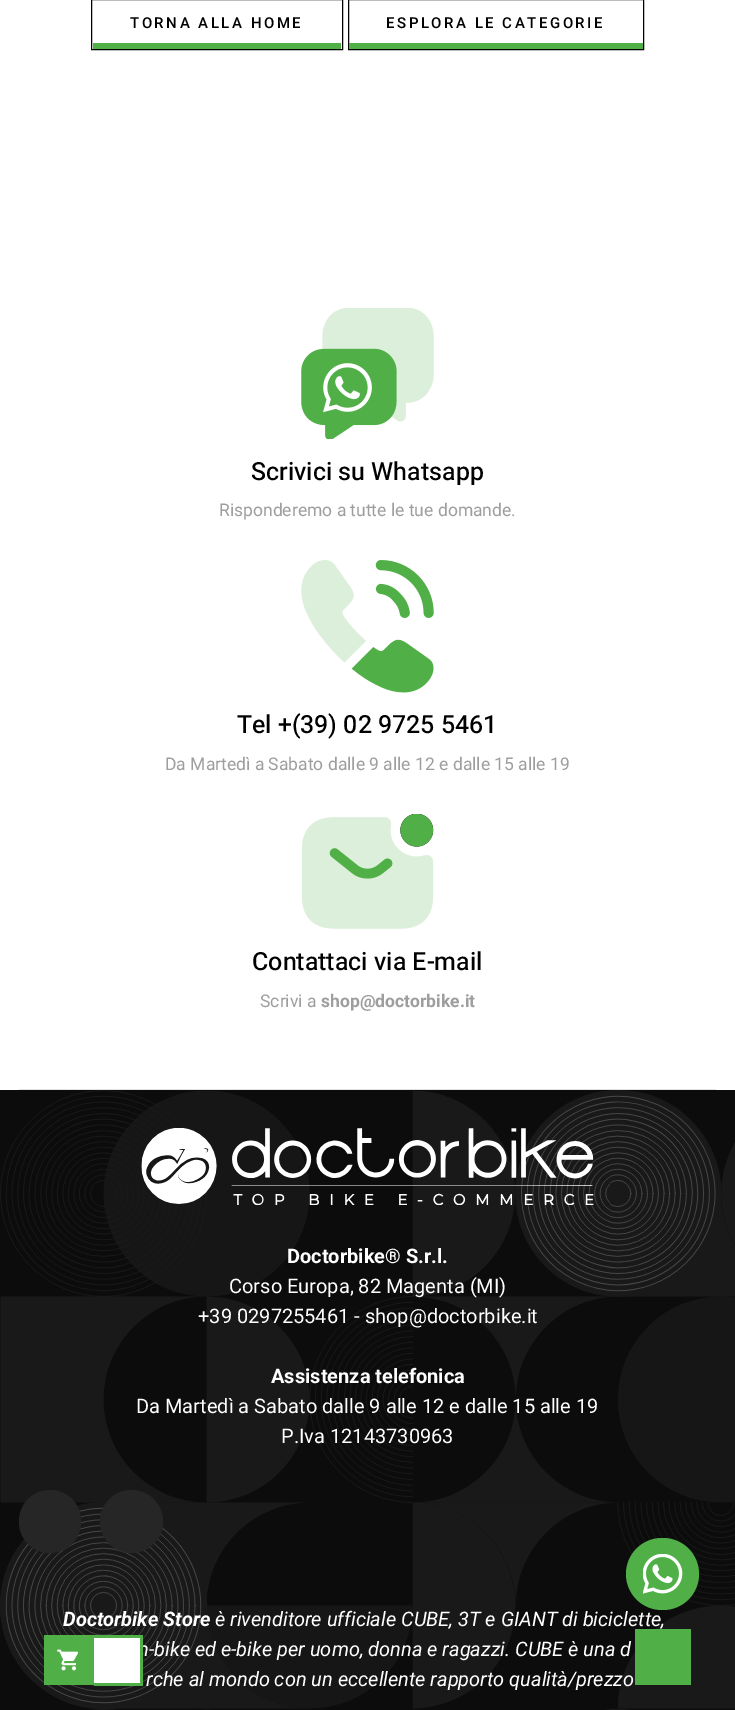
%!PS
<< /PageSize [735 1710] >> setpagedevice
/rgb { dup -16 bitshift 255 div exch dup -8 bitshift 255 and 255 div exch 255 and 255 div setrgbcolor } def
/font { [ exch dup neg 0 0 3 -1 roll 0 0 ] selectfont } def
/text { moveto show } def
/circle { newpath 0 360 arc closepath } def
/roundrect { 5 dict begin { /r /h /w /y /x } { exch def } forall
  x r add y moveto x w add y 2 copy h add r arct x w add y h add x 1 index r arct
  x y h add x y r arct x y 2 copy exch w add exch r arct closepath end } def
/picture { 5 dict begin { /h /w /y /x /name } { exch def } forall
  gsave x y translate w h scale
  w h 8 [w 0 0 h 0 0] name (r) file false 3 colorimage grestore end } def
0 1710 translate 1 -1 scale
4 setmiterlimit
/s1 { /Heebo-Medium 25 font 16#000000 rgb } def
/s2 { /Roboto-Regular 17.5 font 16#9E9E9E rgb } def
/s3 { /Roboto-Bold 17.5 font 16#9E9E9E rgb } def
/s4 { /Roboto-Bold 20 font 16#FFFFFF rgb } def
/s5 { /Roboto-Regular 20 font 16#FFFFFF rgb } def
/s6 { /Roboto-BoldItalic 20 font 16#FFFFFF rgb } def
/s7 { /Roboto-Italic 20 font 16#FFFFFF rgb } def
16#FFFFFF rgb
0 0 735 1710 rectfill
16#000000 rgb
91.5 -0.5 251 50 rectstroke
/Roboto-Medium 15 font
130 28 moveto 2.5 0 (TORNA ALLA HOME) ashow
16#50AF47 rgb
93 43 248 6 rectfill
16#000000 rgb
348.5 -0.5 295 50 rectstroke
386 28 moveto 2.5 0 (ESPLORA LE CATEGORIE) ashow
16#50AF47 rgb
349 43 294 6 rectfill
16#E2E2E2 rgb
19 1089 697 1 rectfill
(pic1.raw) 301 308 133 131 picture
s1
(Scrivici su Whatsapp) 251 480 text
s2
(Risponderemo a tutte le tue domande.) 219 516 text
(pic2.raw) 301 560 133 133 picture
s1
(Tel +\(39\) 02 9725 5461) 237 733 text
s2
(Da Martedì a Sabato dalle 9 alle 12 e dalle 15 alle 19) 165 770 text
(pic3.raw) 301 814 133 115 picture
s1
(Contattaci via E-mail) 252 970 text
s2
(Scrivi a) 260 1007 text
s3
(shop@doctorbike.it) 321 1007 text
16#0C0C0C rgb
0 1090 735 620 rectfill
(pic4.raw) 0 1090 735 620 picture
(pic5.raw) 141 1128 453 77 picture
s4
(Doctorbike® S.r.l.) 287 1263 text
s5
(Corso Europa, 82 Magenta \(MI\)) 229 1293 text
(+39 0297255461 - shop@doctorbike.it) 198 1323 text
s4
(Assistenza telefonica) 271 1383 text
s5
(Da Martedì a Sabato dalle 9 alle 12 e dalle 15 alle 19) 136 1413 text
(P.Iva 12143730963) 281 1443 text
16#262626 rgb
19 1490 62 63 31 roundrect fill
131.5 1521.5 31.5 circle fill
s6
(Doctorbike Store) 63 1626 text
s7
(è rivenditore ufficiale CUBE, 3T e GIANT di biciclette,) 215 1626 text
(n-bike ed e-bike per uomo, donna e ragazzi. CUBE è una d) 138 1656 text
(rche al mondo con un eccellente rapporto qualità/prezzo) 146 1686 text
16#50AF47 rgb
626 1538 73 72 36 roundrect fill
(pic6.raw) 643 1554 40 40 picture
635 1629 56 56 rectfill
44 1635 99 50 rectfill
(pic7.raw) 57 1649 22 22 picture
16#FFFFFF rgb
94 1638 46 45 rectfill
16#50AF47 rgb
94 1685 49 1 rectfill
showpage
